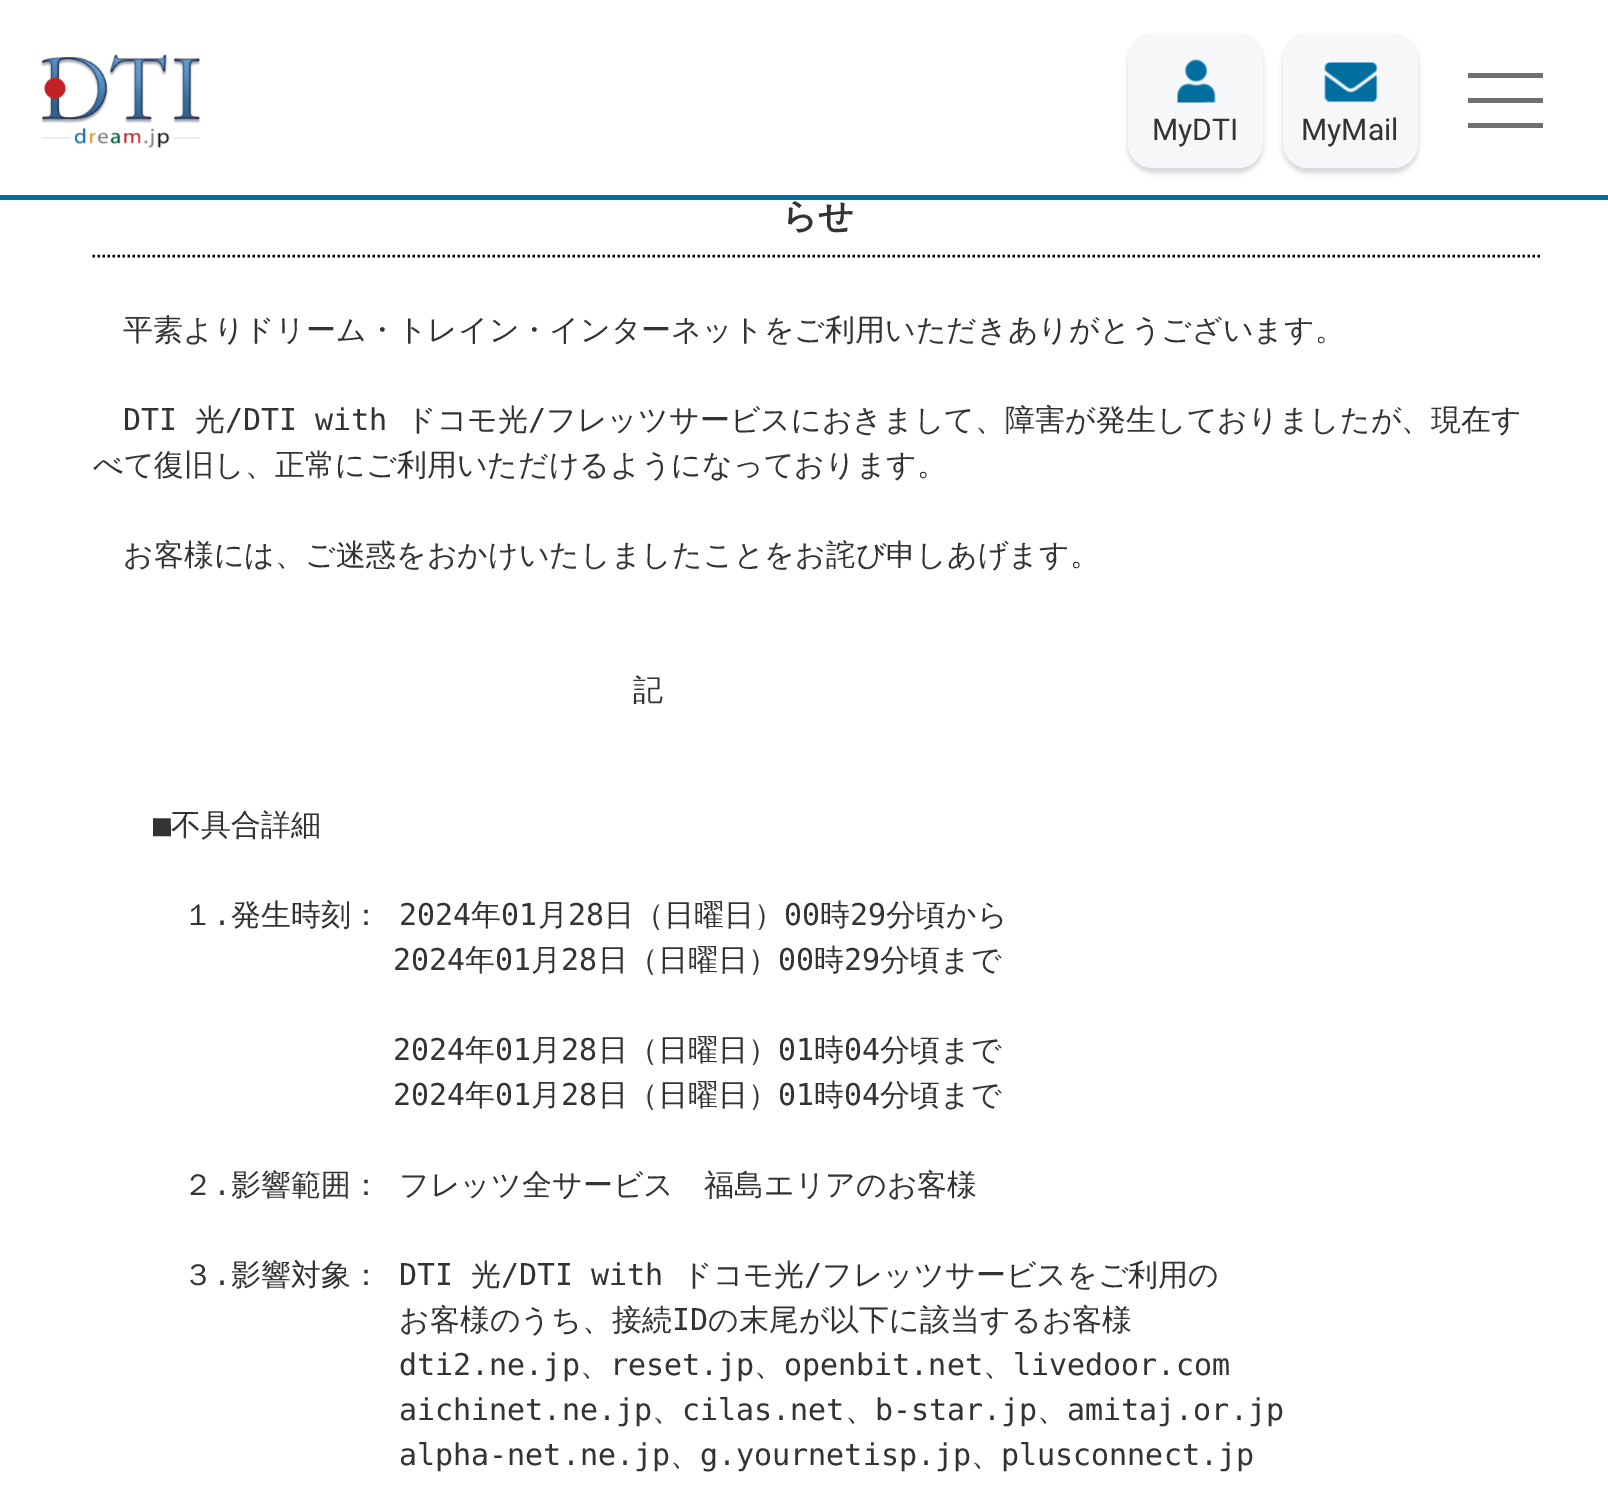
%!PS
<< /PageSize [1608 1490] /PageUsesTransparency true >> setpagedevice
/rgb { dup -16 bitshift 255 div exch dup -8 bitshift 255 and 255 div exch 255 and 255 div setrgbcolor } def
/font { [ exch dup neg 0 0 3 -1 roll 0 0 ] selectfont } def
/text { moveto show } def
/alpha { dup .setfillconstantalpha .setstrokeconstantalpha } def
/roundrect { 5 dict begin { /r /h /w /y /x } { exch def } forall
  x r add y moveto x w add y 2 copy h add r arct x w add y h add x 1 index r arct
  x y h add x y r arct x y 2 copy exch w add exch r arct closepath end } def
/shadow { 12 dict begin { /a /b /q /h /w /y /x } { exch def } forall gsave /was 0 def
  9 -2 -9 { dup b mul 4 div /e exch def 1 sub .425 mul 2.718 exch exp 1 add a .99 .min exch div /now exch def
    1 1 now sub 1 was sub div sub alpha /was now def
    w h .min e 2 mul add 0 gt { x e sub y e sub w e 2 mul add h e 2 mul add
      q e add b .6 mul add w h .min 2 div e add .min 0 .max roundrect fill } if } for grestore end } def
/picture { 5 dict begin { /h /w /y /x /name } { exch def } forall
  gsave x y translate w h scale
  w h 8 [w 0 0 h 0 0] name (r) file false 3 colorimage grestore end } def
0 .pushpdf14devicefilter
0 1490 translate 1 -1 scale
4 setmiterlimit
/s1 { /Roboto-Regular 30 font 16#333333 rgb } def
/s2 { /WenQuanYiZenHei-Bold 35 font 16#333333 rgb } def
/s3 { /WenQuanYiZenHei-Medium 30 font 16#333333 rgb } def
/s4 { /DejaVuSansMono-Regular 30 font 16#333333 rgb } def
16#FFFFFF rgb
0 0 1608 1490 rectfill
16#006FA0 rgb
0 195 1608 5 rectfill
(pic1.raw) 40 54 161 94 picture
16#707070 rgb
1468 73 75 5 rectfill
1468 98 75 5 rectfill
1468 123 75 5 rectfill
16#000000 rgb
1128 38 135 135 25 2.5 0.16 shadow
16#F5F7F9 rgb
1128 33 135 135 25 roundrect fill
(pic2.raw) 1177 59 39 44 picture
s1
(MyDTI) 1152 140 text
16#000000 rgb
1283 38 135 135 25 2.5 0.16 shadow
16#F5F7F9 rgb
1283 33 135 135 25 roundrect fill
(pic3.raw) 1324 62 54 41 picture
s1
(MyMail) 1301 140 text
16#000000 rgb
2.5 setlinewidth
[2.5 2.5] 0 setdash
92.5 256 moveto 1542.5 256 lineto stroke
s2
(らせ) 782 228 text
s3
(平素よりドリーム・トレイン・インターネットをご利用いただきありがとうございます。) 123 340 text
s4
(DTI) 123 430 text
s3
(光) 195 430 text
s4
(/DTI with) 225 430 text
s3
(ドコモ光) 406 430 text
s4
(/) 528 430 text
s3
(フレッツサービスにおきまして、障害が発生しておりましたが、現在す) 546 430 text
(べて復旧し、正常にご利用いただけるようになっております。) 93 475 text
(お客様には、ご迷惑をおかけいたしましたことをお詫び申しあげます。) 123 565 text
(記) 633 700 text
s4
(■) 153 835 text
s3
(不具合詳細) 171 835 text
(１) 183 925 text
s4
(.) 213 925 text
s3
(発生時刻：) 231 925 text
s4
(2024) 399 925 text
s3
(年) 471 925 text
s4
(01) 501 925 text
s3
(月) 538 925 text
s4
(28) 568 925 text
s3
(日（日曜日）) 604 925 text
s4
(00) 784 925 text
s3
(時) 820 925 text
s4
(29) 850 925 text
s3
(分頃から) 886 925 text
s4
(2024) 393 970 text
s3
(年) 465 970 text
s4
(01) 495 970 text
s3
(月) 531 970 text
s4
(28) 561 970 text
s3
(日（日曜日）) 598 970 text
s4
(00) 778 970 text
s3
(時) 814 970 text
s4
(29) 844 970 text
s3
(分頃まで) 880 970 text
s4
(2024) 393 1060 text
s3
(年) 465 1060 text
s4
(01) 495 1060 text
s3
(月) 531 1060 text
s4
(28) 561 1060 text
s3
(日（日曜日）) 598 1060 text
s4
(01) 778 1060 text
s3
(時) 814 1060 text
s4
(04) 844 1060 text
s3
(分頃まで) 880 1060 text
s4
(2024) 393 1105 text
s3
(年) 465 1105 text
s4
(01) 495 1105 text
s3
(月) 531 1105 text
s4
(28) 561 1105 text
s3
(日（日曜日）) 598 1105 text
s4
(01) 778 1105 text
s3
(時) 814 1105 text
s4
(04) 844 1105 text
s3
(分頃まで) 880 1105 text
(２) 183 1195 text
s4
(.) 213 1195 text
/WenQuanYiZenHei-Medium 30 font
231 1195 moveto 9 0 32 (影響範囲： フレッツ全サービス　福島エリアのお客様) widthshow
(３) 183 1285 text
s4
(.) 213 1285 text
s3
(影響対象：) 231 1285 text
s4
(DTI) 399 1285 text
s3
(光) 471 1285 text
s4
(/DTI with) 501 1285 text
s3
(ドコモ光) 682 1285 text
s4
(/) 804 1285 text
s3
(フレッツサービスをご利用の) 822 1285 text
(お客様のうち、接続) 399 1330 text
s4
(ID) 672 1330 text
s3
(の末尾が以下に該当するお客様) 708 1330 text
s4
(dti2.ne.jp) 399 1375 text
s3
(、) 580 1375 text
s4
(reset.jp) 610 1375 text
s3
(、) 754 1375 text
s4
(openbit.net) 784 1375 text
s3
(、) 983 1375 text
s4
(livedoor.com) 1013 1375 text
(aichinet.ne.jp) 399 1420 text
s3
(、) 652 1420 text
s4
(cilas.net) 682 1420 text
s3
(、) 845 1420 text
s4
(b-star.jp) 875 1420 text
s3
(、) 1037 1420 text
s4
(amitaj.or.jp) 1067 1420 text
(alpha-net.ne.jp) 399 1465 text
s3
(、) 670 1465 text
s4
(g.yournetisp.jp) 700 1465 text
s3
(、) 971 1465 text
s4
(plusconnect.jp) 1001 1465 text
.poppdf14devicefilter showpage
